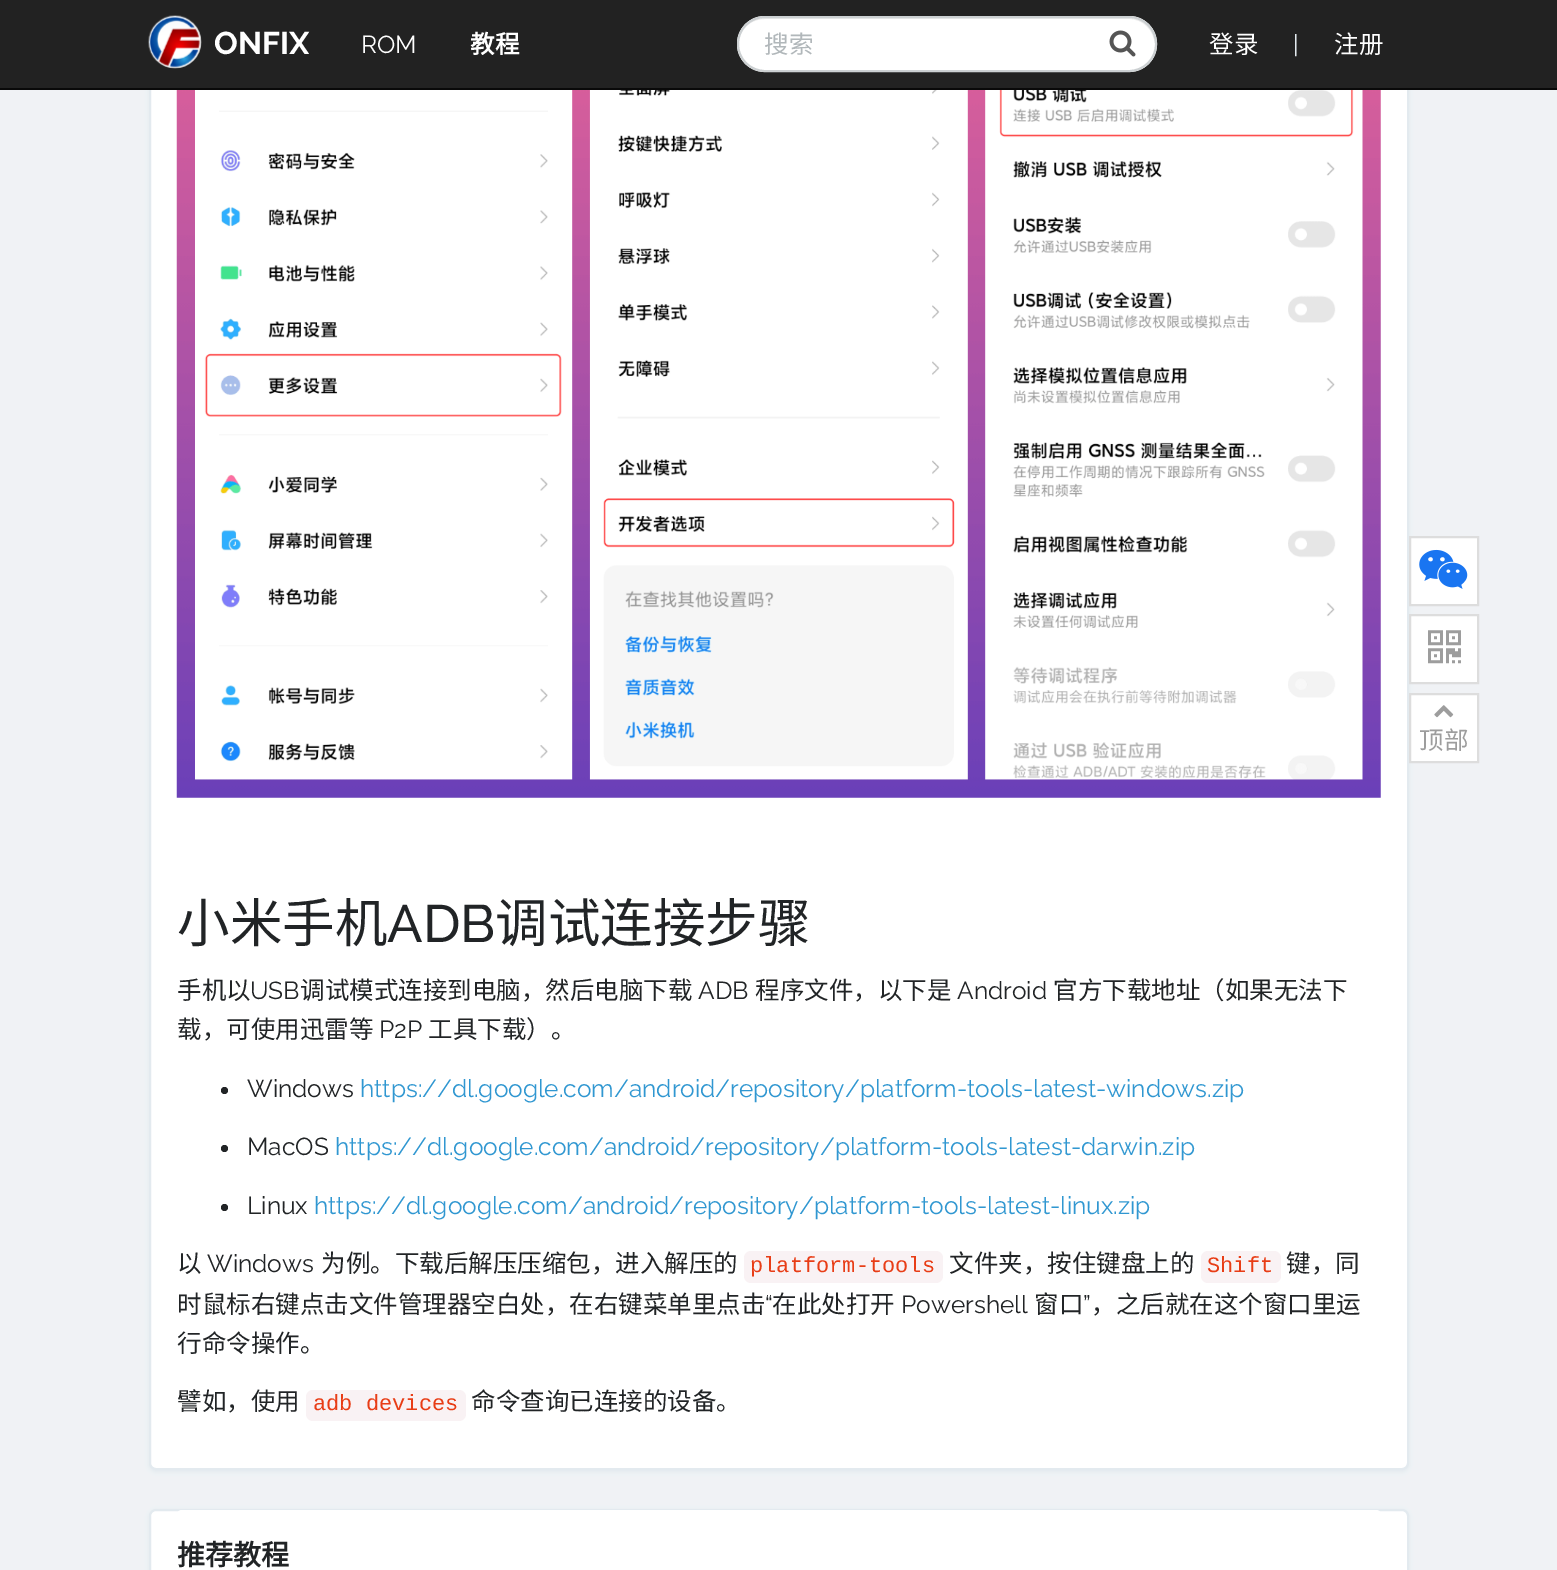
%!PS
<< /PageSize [1557 1570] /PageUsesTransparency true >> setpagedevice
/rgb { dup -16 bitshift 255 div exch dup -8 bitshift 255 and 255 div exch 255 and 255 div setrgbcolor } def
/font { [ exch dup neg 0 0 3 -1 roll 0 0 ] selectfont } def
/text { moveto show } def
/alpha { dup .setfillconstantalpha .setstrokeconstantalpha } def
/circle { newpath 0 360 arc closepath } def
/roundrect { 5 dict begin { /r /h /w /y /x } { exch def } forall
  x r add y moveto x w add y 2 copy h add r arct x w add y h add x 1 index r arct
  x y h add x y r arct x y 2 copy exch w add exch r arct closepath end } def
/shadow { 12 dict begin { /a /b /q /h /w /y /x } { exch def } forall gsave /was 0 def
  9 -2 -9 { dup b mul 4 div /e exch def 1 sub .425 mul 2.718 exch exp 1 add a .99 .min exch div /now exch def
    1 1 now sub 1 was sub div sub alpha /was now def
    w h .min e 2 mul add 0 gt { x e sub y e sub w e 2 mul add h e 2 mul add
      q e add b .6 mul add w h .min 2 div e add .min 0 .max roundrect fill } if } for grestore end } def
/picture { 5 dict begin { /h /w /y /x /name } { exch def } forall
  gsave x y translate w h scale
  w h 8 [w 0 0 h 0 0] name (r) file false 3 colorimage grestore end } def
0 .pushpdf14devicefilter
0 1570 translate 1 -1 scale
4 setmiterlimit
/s1 { /Raleway-Bold 31.5 font 16#FFFFFF rgb } def
/s2 { /Raleway-Regular 24.5 font 16#FFFFFF rgb } def
/s3 { /NotoSansCJKSC-Bold 24.5 font 16#FFFFFF rgb } def
/s4 { /NotoSansCJKSC-Regular 24.5 font 16#B1B7BA rgb } def
/s5 { /NotoSansCJKSC-Regular 24.5 font 16#FFFFFF rgb } def
/s6 { /Raleway-Regular 24.5 font 16#E3EAEF rgb } def
/s7 { /NotoSansCJKSC-Regular 24.5 font 16#9D9D9D rgb } def
/s8 { /NotoSansCJKSC-Regular 52.5 font 16#212426 rgb } def
/s9 { /Raleway-Medium 52.5 font 16#212426 rgb } def
/s10 { /NotoSansCJKSC-Regular 24.5 font 16#212426 rgb } def
/s11 { /Raleway-Regular 24.5 font 16#212426 rgb } def
/s12 { /Raleway-Regular 24.5 font 16#3097D1 rgb } def
/s13 { /LiberationMono-Regular 22 font 16#E83D16 rgb } def
/s14 { /NotoSansCJKSC-Bold 28 font 16#212426 rgb } def
16#F0F2F5 rgb
0 0 1557 1570 rectfill
16#65819C rgb
149 -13 1260 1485 7 2 0.08 shadow
16#FFFFFF rgb
150 -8 1258 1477 6 roundrect gsave fill grestore
16#E3EAEF rgb
2 setlinewidth
stroke
16#222222 rgb
0 0 1557 88 rectfill
16#090909 rgb
0 88 1557 2 rectfill
(pic1.raw) 148 15 54 54 picture
s1
(ONFIX) 214 54 text
s2
(ROM) 361 53 text
s3
(教程) 470 53 text
737 16 420 56 28 roundrect fill
16#ECECEC rgb
765 19 moveto 1129 19 lineto 1143 19 1154 30 1155 45 curveto 1155 44 lineto 1155 30 1143 18 1129 18 curveto 765 18 lineto 755 18 747 23 742 31 curveto 747 24 755 19 765 19 curveto closepath fill
16#CCD0D2 rgb
738 17 418 54 27 roundrect stroke
s4
(搜索) 764 53 text
(pic2.raw) 1109 30 27 27 picture
s5
(登录) 1209 53 text
s6
(|) 1293 53 text
s5
(注册) 1334 53 text
1410 537 moveto 1478 537 lineto 1478 605 lineto 1410 605 lineto closepath gsave fill grestore
16#DDDDDD rgb
stroke
(pic3.raw) 1419 549 49 40 picture
16#FFFFFF rgb
1410 615 moveto 1478 615 lineto 1478 683 lineto 1410 683 lineto closepath gsave fill grestore
16#DDDDDD rgb
stroke
(pic4.raw) 1428 630 33 34 picture
16#FFFFFF rgb
1410 694 moveto 1478 694 lineto 1478 762 lineto 1410 762 lineto closepath gsave fill grestore
16#DDDDDD rgb
stroke
(pic5.raw) 1434 705 20 13 picture
s7
(顶部) 1419 749 text
(pic6.raw) 176 90 1205 708 picture
s8
(小米手机) 177 942 text
s9
(ADB) 387 942 text
s8
(调试连接步骤) 495 942 text
s10
(手机以) 177 999 text
s11
(USB) 250 999 text
s10
(调试模式连接到电脑，然后电脑下载) 300 999 text
s11
(ADB) 698 999 text
s10
(程序文件，以下是) 755 999 text
s11
(Android) 957 999 text
s10
(官方下载地址（如果无法下) 1053 999 text
(载，可使用迅雷等) 177 1038 text
s11
(P2P) 379 1038 text
s10
(工具下载）。) 428 1038 text
224.5 1090.5 3.5 circle fill
s11
(Windows) 247 1097 text
s12
(https://dl.google.com/android/repository/platform-tools-latest-windows.zip) 360 1097 text
16#212426 rgb
224.5 1148.5 3.5 circle fill
(MacOS) 247 1155 text
s12
(https://dl.google.com/android/repository/platform-tools-latest-darwin.zip) 335 1155 text
16#212426 rgb
224.5 1207.5 3.5 circle fill
(Linux) 247 1214 text
s12
(https://dl.google.com/android/repository/platform-tools-latest-linux.zip) 314 1214 text
s10
(以) 177 1272 text
s11
(Windows) 207 1272 text
s10
(为例。下载后解压压缩包，进入解压的) 321 1272 text
16#F9F2F4 rgb
744 1251 199 32 7 roundrect fill
s13
(platform-tools) 750 1272 text
s10
(文件夹，按住键盘上的) 949 1272 text
16#F9F2F4 rgb
1201 1251 80 32 7 roundrect fill
s13
(Shift) 1207 1272 text
s10
(键，同) 1286 1272 text
(时鼠标右键点击文件管理器空白处，在右键菜单里点击) 177 1313 text
s11
(“) 765 1313 text
s10
(在此处打开) 772 1313 text
s11
(Powershell) 901 1313 text
s10
(窗口) 1034 1313 text
s11
(”) 1083 1313 text
s10
(，之后就在这个窗口里运) 1091 1313 text
(行命令操作。) 177 1352 text
(譬如，使用) 177 1410 text
16#F9F2F4 rgb
306 1390 160 31 7 roundrect fill
s13
(adb devices) 313 1410 text
s10
(命令查询已连接的设备。) 471 1410 text
16#65819C rgb
149 1510 1260 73 7 2 0.08 shadow
16#FFFFFF rgb
150 1510 1258 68 6 roundrect gsave fill grestore
16#E3EAEF rgb
stroke
16#FFFFFF rgb
182 1510 moveto 1376 1510 lineto 1379 1510 1381 1512 1381 1515 curveto 1381 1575 lineto 177 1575 lineto 177 1515 lineto 177 1512 179 1510 182 1510 curveto closepath fill
s14
(推荐教程) 177 1565 text
.poppdf14devicefilter showpage
